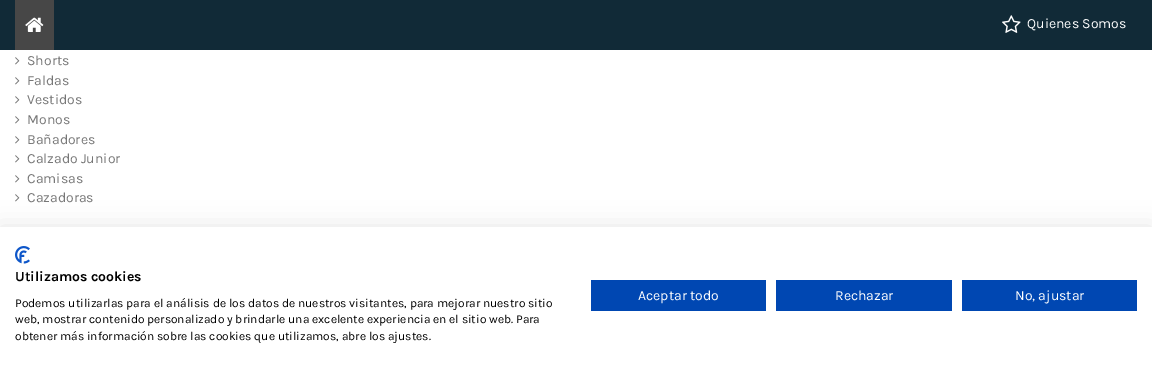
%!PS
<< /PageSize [1152 372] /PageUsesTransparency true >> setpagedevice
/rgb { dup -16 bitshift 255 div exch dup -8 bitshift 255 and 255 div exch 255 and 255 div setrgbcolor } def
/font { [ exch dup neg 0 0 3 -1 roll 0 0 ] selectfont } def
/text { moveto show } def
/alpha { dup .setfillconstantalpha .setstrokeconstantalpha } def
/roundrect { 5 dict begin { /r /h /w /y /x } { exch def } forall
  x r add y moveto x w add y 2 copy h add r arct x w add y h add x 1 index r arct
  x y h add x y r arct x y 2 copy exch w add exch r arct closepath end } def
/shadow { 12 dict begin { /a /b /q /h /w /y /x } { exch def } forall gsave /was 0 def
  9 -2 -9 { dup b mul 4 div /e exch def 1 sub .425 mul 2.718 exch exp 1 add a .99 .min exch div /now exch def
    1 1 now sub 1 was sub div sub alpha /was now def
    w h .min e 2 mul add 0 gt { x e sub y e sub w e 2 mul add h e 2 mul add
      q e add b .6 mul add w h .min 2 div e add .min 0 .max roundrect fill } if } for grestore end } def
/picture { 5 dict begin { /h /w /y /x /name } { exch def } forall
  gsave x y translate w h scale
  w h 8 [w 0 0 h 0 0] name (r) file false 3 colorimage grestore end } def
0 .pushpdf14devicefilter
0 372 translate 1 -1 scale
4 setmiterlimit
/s1 { /Karla-Regular 14 font 16#FFFFFF rgb } def
/s2 { /Karla-Regular 14 font 16#777777 rgb } def
/s3 { /Karla-Bold 14 font 16#000000 rgb } def
/s4 { /Karla-Regular 12 font 16#000000 rgb } def
16#FFFFFF rgb
0 0 1152 372 rectfill
16#112A37 rgb
0 0 1152 50 rectfill
16#474747 rgb
15 0 39 50 rectfill
(pic1.raw) 25 17 19 15 picture
(pic2.raw) 1002 15 19 18 picture
s1
(Quienes Somos) 1027 28 text
(pic3.raw) 15 57 5 8 picture
s2
(Shorts) 27 65 text
(pic3.raw) 15 77 5 8 picture
(Faldas) 27 85 text
(pic3.raw) 15 96 5 8 picture
(Vestidos) 27 104 text
(pic3.raw) 15 116 5 8 picture
(Monos) 27 124 text
(pic3.raw) 15 136 5 8 picture
(Bañadores) 27 144 text
(pic3.raw) 15 155 5 8 picture
(Calzado Junior) 27 163 text
(pic3.raw) 15 175 5 8 picture
(Camisas) 27 183 text
(pic3.raw) 15 194 5 8 picture
(Cazadoras) 27 202 text
16#000000 rgb
0 227 1152 145 0 12 0.1 shadow
16#FFFFFF rgb
0 227 1152 145 rectfill
(pic4.raw) 15 246 15 18 picture
s3
(Utilizamos cookies) 15 281 text
s4
(Podemos utilizarlas para el análisis de los datos de nuestros visitantes, para mejorar nuestro sitio) 15 307 text
(web, mostrar contenido personalizado y brindarle una excelente experiencia en el sitio web. Para) 15 323 text
(obtener más información sobre las cookies que utilizamos, abre los ajustes.) 15 340 text
16#0047B2 rgb
591 280 175 31 rectfill
s1
(Aceptar todo) 638 300 text
16#0047B2 rgb
776 280 176 31 rectfill
s1
(Rechazar) 835 300 text
16#0047B2 rgb
962 280 175 31 rectfill
s1
(No, ajustar) 1015 300 text
.poppdf14devicefilter showpage
